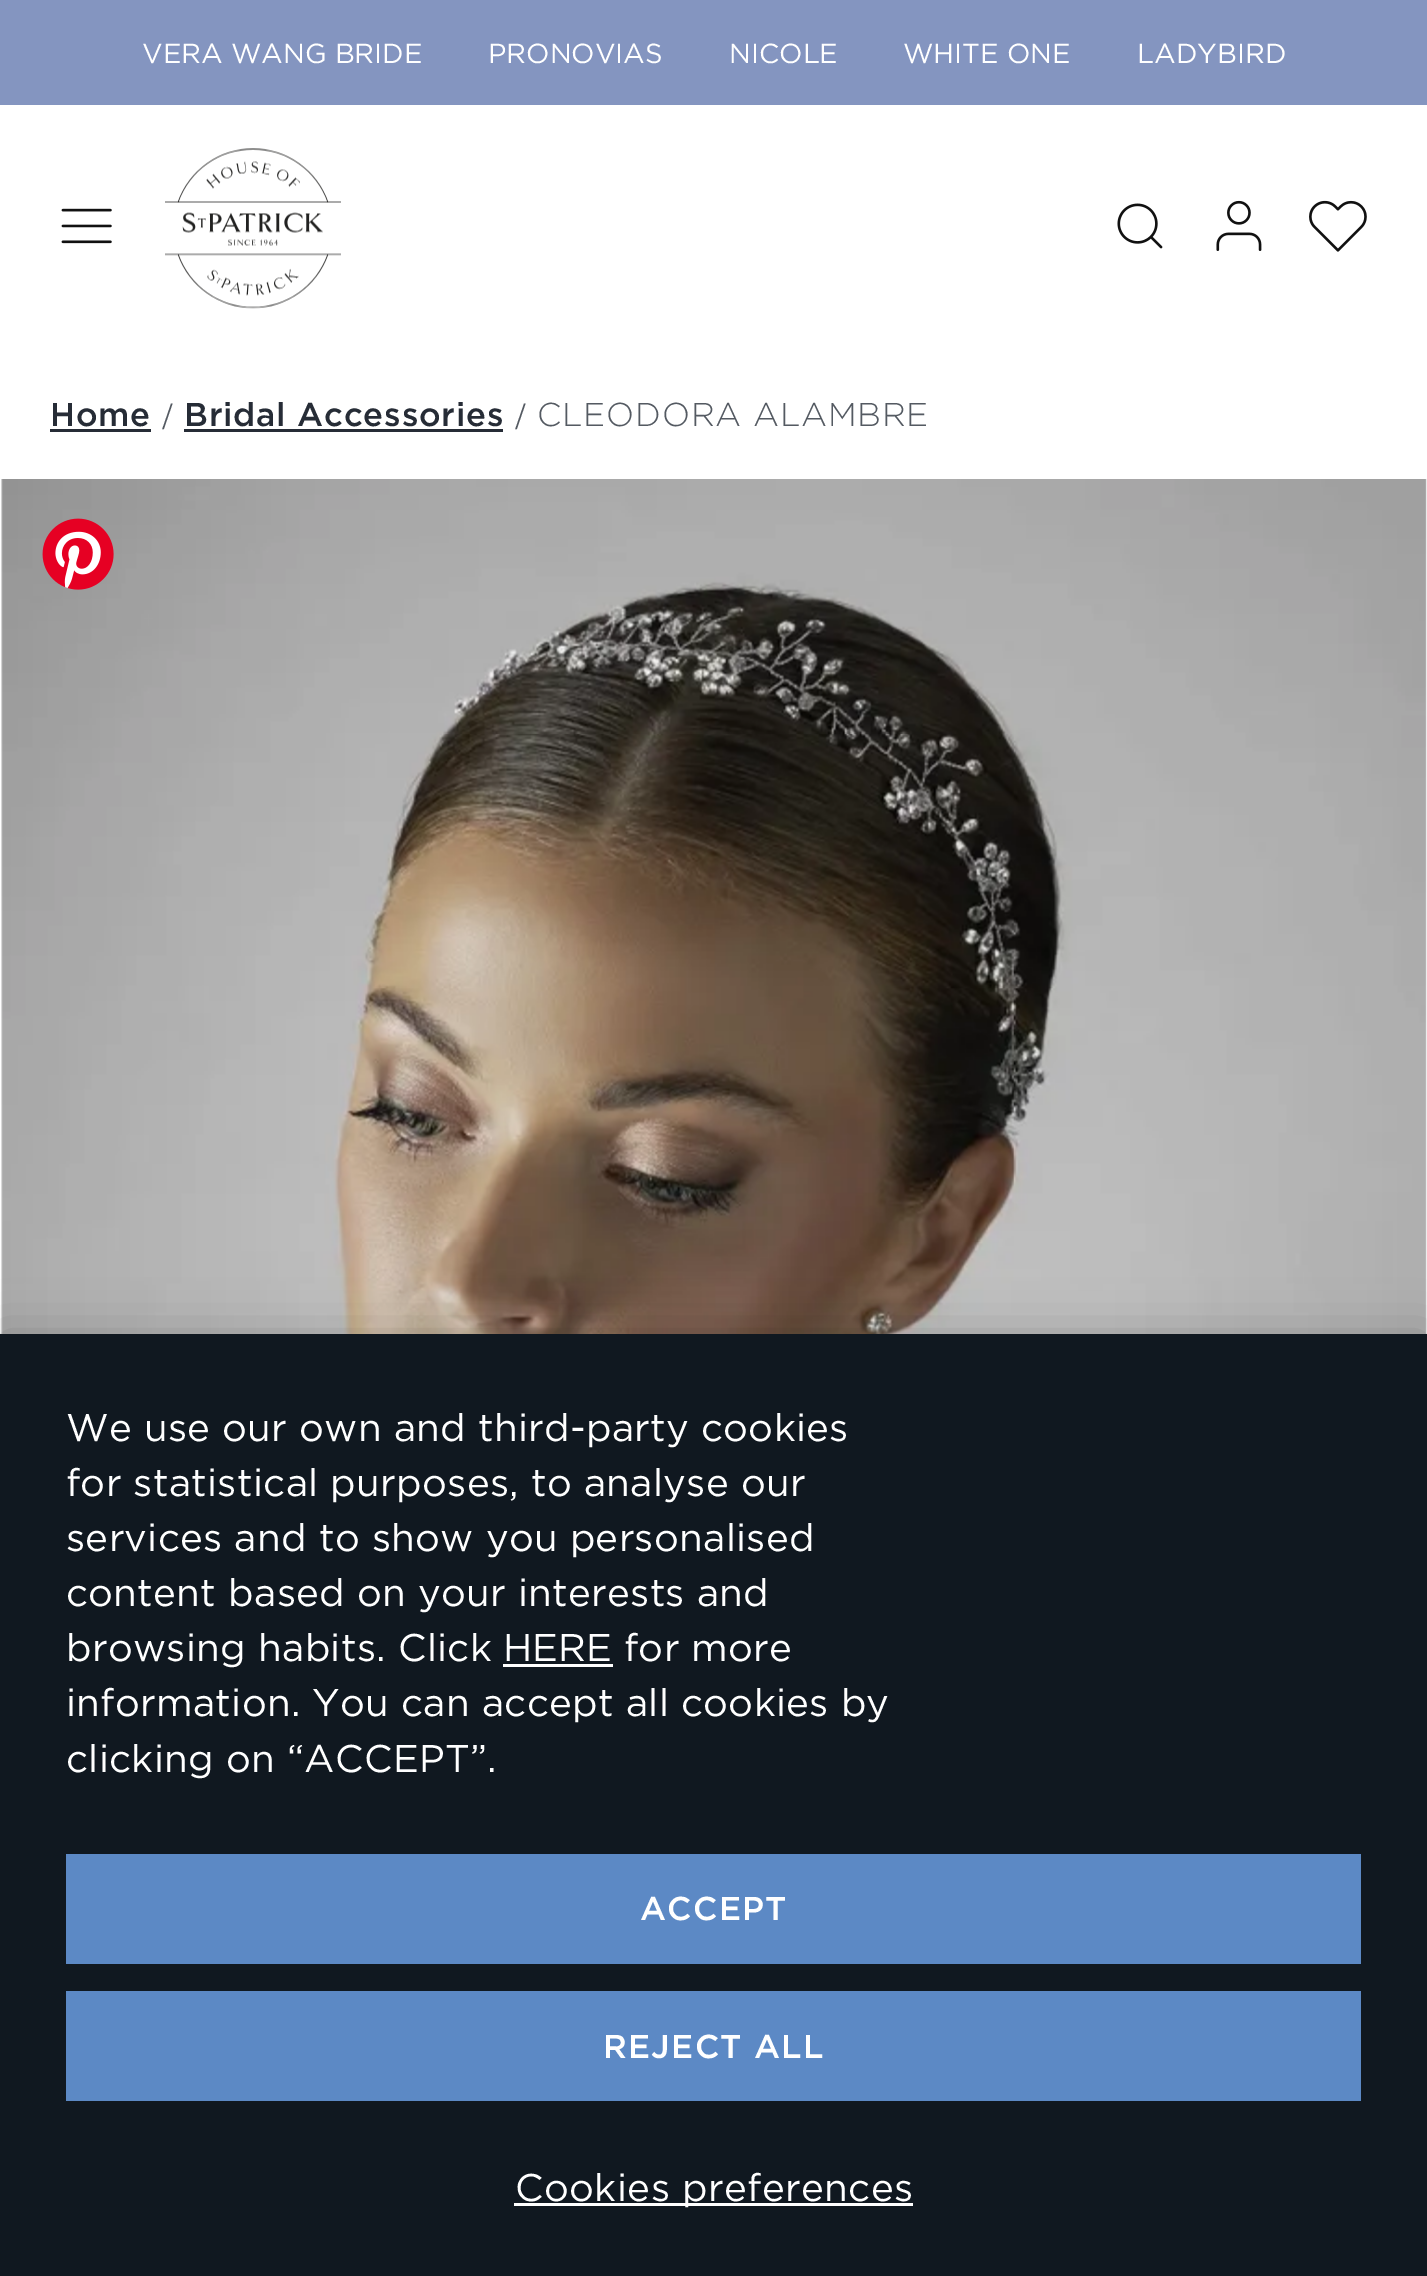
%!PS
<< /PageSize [1427 2276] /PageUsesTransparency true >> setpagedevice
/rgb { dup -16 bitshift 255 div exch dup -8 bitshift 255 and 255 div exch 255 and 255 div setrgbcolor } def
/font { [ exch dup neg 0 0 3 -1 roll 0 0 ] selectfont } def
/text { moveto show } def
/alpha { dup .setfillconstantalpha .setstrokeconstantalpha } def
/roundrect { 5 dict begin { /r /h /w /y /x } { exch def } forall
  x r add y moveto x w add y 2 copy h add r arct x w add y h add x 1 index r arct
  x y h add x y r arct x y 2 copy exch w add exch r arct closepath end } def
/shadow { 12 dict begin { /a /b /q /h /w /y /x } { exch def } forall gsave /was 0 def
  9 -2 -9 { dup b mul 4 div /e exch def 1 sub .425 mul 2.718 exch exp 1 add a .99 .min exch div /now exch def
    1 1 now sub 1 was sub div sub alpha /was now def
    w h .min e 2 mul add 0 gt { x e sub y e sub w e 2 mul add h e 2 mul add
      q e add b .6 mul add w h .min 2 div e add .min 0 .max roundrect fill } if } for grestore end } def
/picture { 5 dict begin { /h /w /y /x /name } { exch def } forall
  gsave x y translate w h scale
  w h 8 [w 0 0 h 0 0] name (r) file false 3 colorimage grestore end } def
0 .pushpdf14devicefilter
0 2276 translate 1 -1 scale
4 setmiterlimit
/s1 { /Gotham-Regular 27.5 font 16#FFFFFF rgb } def
/s2 { /Gotham-Regular 38.5 font 16#FFFFFF rgb } def
16#FFFFFF rgb
0 0 1427 2276 rectfill
16#8495C0 rgb
0 0 1427 105 rectfill
s1
(VERA WANG BRIDE) 142 63 text
(PRONOVIAS) 488 63 text
(NICOLE) 729 63 text
(WHITE ONE) 903 63 text
(LADYBIRD) 1137 63 text
(pic1.raw) 61 208 51 36 picture
(pic2.raw) 165 148 176 161 picture
(pic3.raw) 1117 203 46 46 picture
(pic4.raw) 1216 200 46 51 picture
(pic5.raw) 1309 200 58 52 picture
/Gotham-Medium 33 font
16#262C36 rgb
50 426 moveto 0.8 0 (Home) ashow
50 429 101 3 rectfill
/LiberationSerif-Regular 38.5 font
16#545A62 rgb
162 429 moveto 0.8 0 (/) ashow
/Gotham-Medium 33 font
16#262C36 rgb
184 426 moveto 0.8 0 (Bridal Accessories) ashow
184 429 319 3 rectfill
/LiberationSerif-Regular 38.5 font
16#545A62 rgb
515 429 moveto 0.8 0 (/) ashow
/Gotham-Light 33 font
537 426 moveto 0.8 0 (CLEODORA ALAMBRE) ashow
(pic6.raw) 1 479 1426 855 picture
(pic7.raw) 42 518 72 72 picture
16#000000 rgb
0 1334 1427 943 0 25 0.2 shadow
16#101820 rgb
0 1334 1427 942 rectfill
/Gotham-Regular 38.5 font
16#FFFFFF rgb
66 1441 moveto 0.3 0 (We use our own and third-party cookies) ashow
66 1496 moveto 0.3 0 (for statistical purposes, to analyse our) ashow
66 1551 moveto 0.3 0 (services and to show you personalised) ashow
66 1606 moveto 0.3 0 (content based on your interests and) ashow
66 1661 moveto 0.3 0 (browsing habits. Click) ashow
(HERE) 503 1661 text
503 1664 110 3 rectfill
624 1661 moveto 0.3 0 (for more) ashow
66 1716 moveto 0.3 0 (information. You can accept all cookies by) ashow
66 1772 moveto 0.3 0 (clicking on “ACCEPT”.) ashow
16#5C89C5 rgb
66 1854 1295 110 rectfill
/Gotham-Medium 33 font
16#FFFFFF rgb
640 1920 moveto 1.25 0 (ACCEPT) ashow
16#5C89C5 rgb
66 1991 1295 110 rectfill
16#FFFFFF rgb
603 2058 moveto 1.25 0 (REJECT ALL) ashow
514 2203 399 3 rectfill
/Gotham-Regular 38.5 font
515 2201 moveto 0.4 0 (Cookies preferences) ashow
.poppdf14devicefilter showpage
